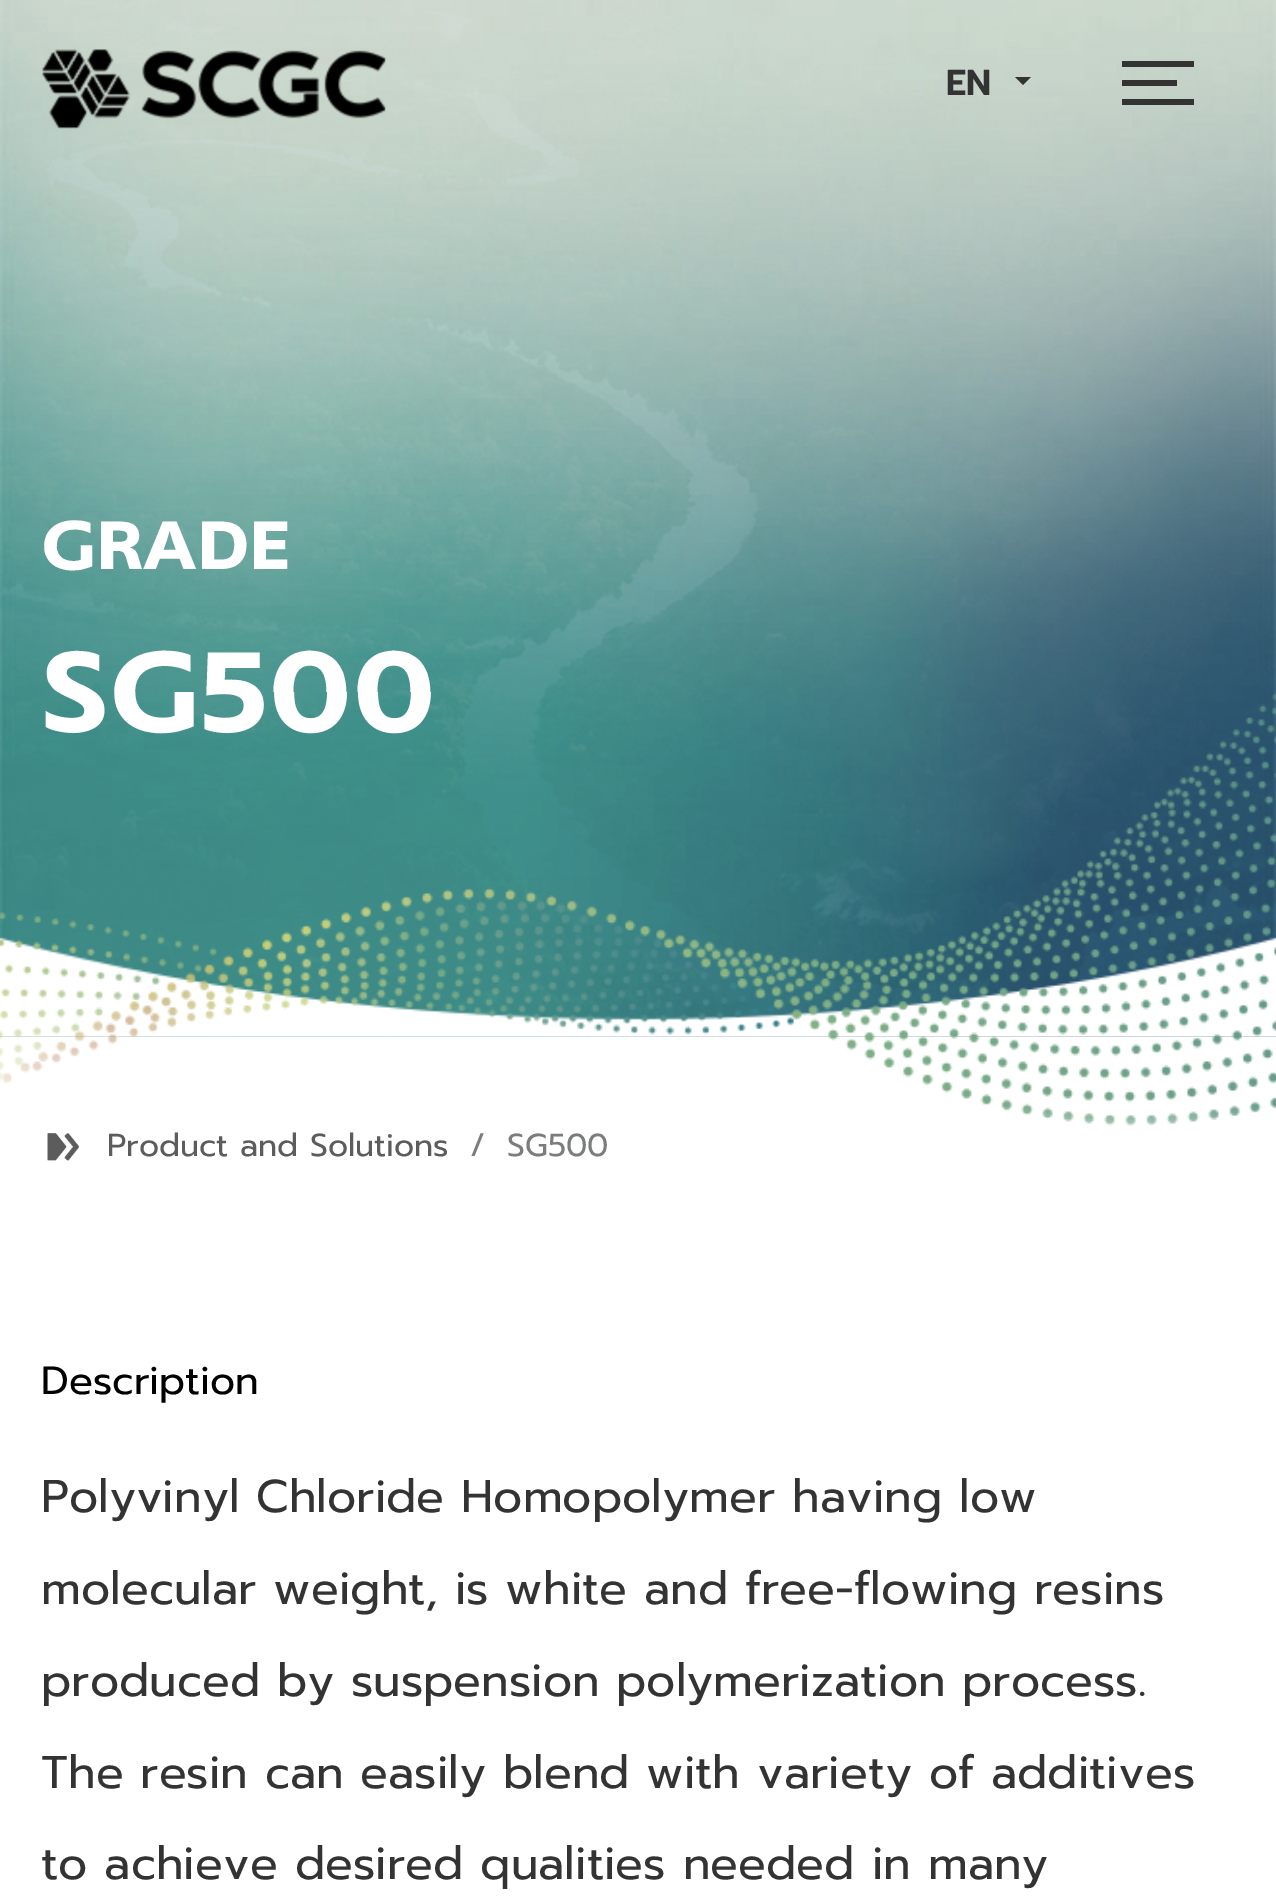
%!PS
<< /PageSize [1276 1900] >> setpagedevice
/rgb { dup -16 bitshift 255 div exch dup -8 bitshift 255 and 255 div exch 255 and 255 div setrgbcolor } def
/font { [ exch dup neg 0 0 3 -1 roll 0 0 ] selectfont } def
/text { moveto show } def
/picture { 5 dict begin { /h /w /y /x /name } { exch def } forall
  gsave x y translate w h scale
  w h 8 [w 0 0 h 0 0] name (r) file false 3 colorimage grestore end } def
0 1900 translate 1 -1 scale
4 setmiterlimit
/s1 { /Prompt-SemiBold 36 font 16#333333 rgb } def
/s2 { /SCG-Bold 78 font 16#FFFFFF rgb } def
/s3 { /SCG-Bold 128.5 font 16#FFFFFF rgb } def
/s4 { /Prompt-Regular 31.75 font 16#5C5C5C rgb } def
/s5 { /Prompt-Regular 31.75 font 16#7B7D7D rgb } def
/s6 { /Prompt-Regular 39.5 font 16#000000 rgb } def
/s7 { /Prompt-Regular 45.95 font 16#333333 rgb } def
16#FFFFFF rgb
0 0 1276 1900 rectfill
(pic2.raw) 0 0 1276 1037 picture
(pic1.raw) 42 49 344 80 picture
s1
(EN) 946 95 text
1015 77 moveto 1031 77 lineto 1023 85 lineto closepath fill
1122 61 72 6 rectfill
1122 80 55 6 rectfill
1122 99 72 6 rectfill
s2
(GRADE) 41 569 text
s3
(SG500) 41 731 text
(pic4.raw) 0 937 1276 100 picture
(pic3.raw) 0 692 1276 434 picture
(pic5.raw) 47 1133 32 28 picture
s4
(Product and Solutions) 107 1156 text
s5
(/) 470 1156 text
(SG500) 507 1156 text
s6
(Description) 41 1394 text
s7
(Polyvinyl Chloride Homopolymer having low) 41 1512 text
41 1604 moveto -0.25 0 32 (molecular weight, is white and free-flowing resins) widthshow
41 1696 moveto -0.5 0 32 (produced by suspension polymerization process.) widthshow
41 1788 moveto -0.25 0 32 (The resin can easily blend with variety of additives) widthshow
(to achieve desired qualities needed in many) 41 1879 text
showpage
